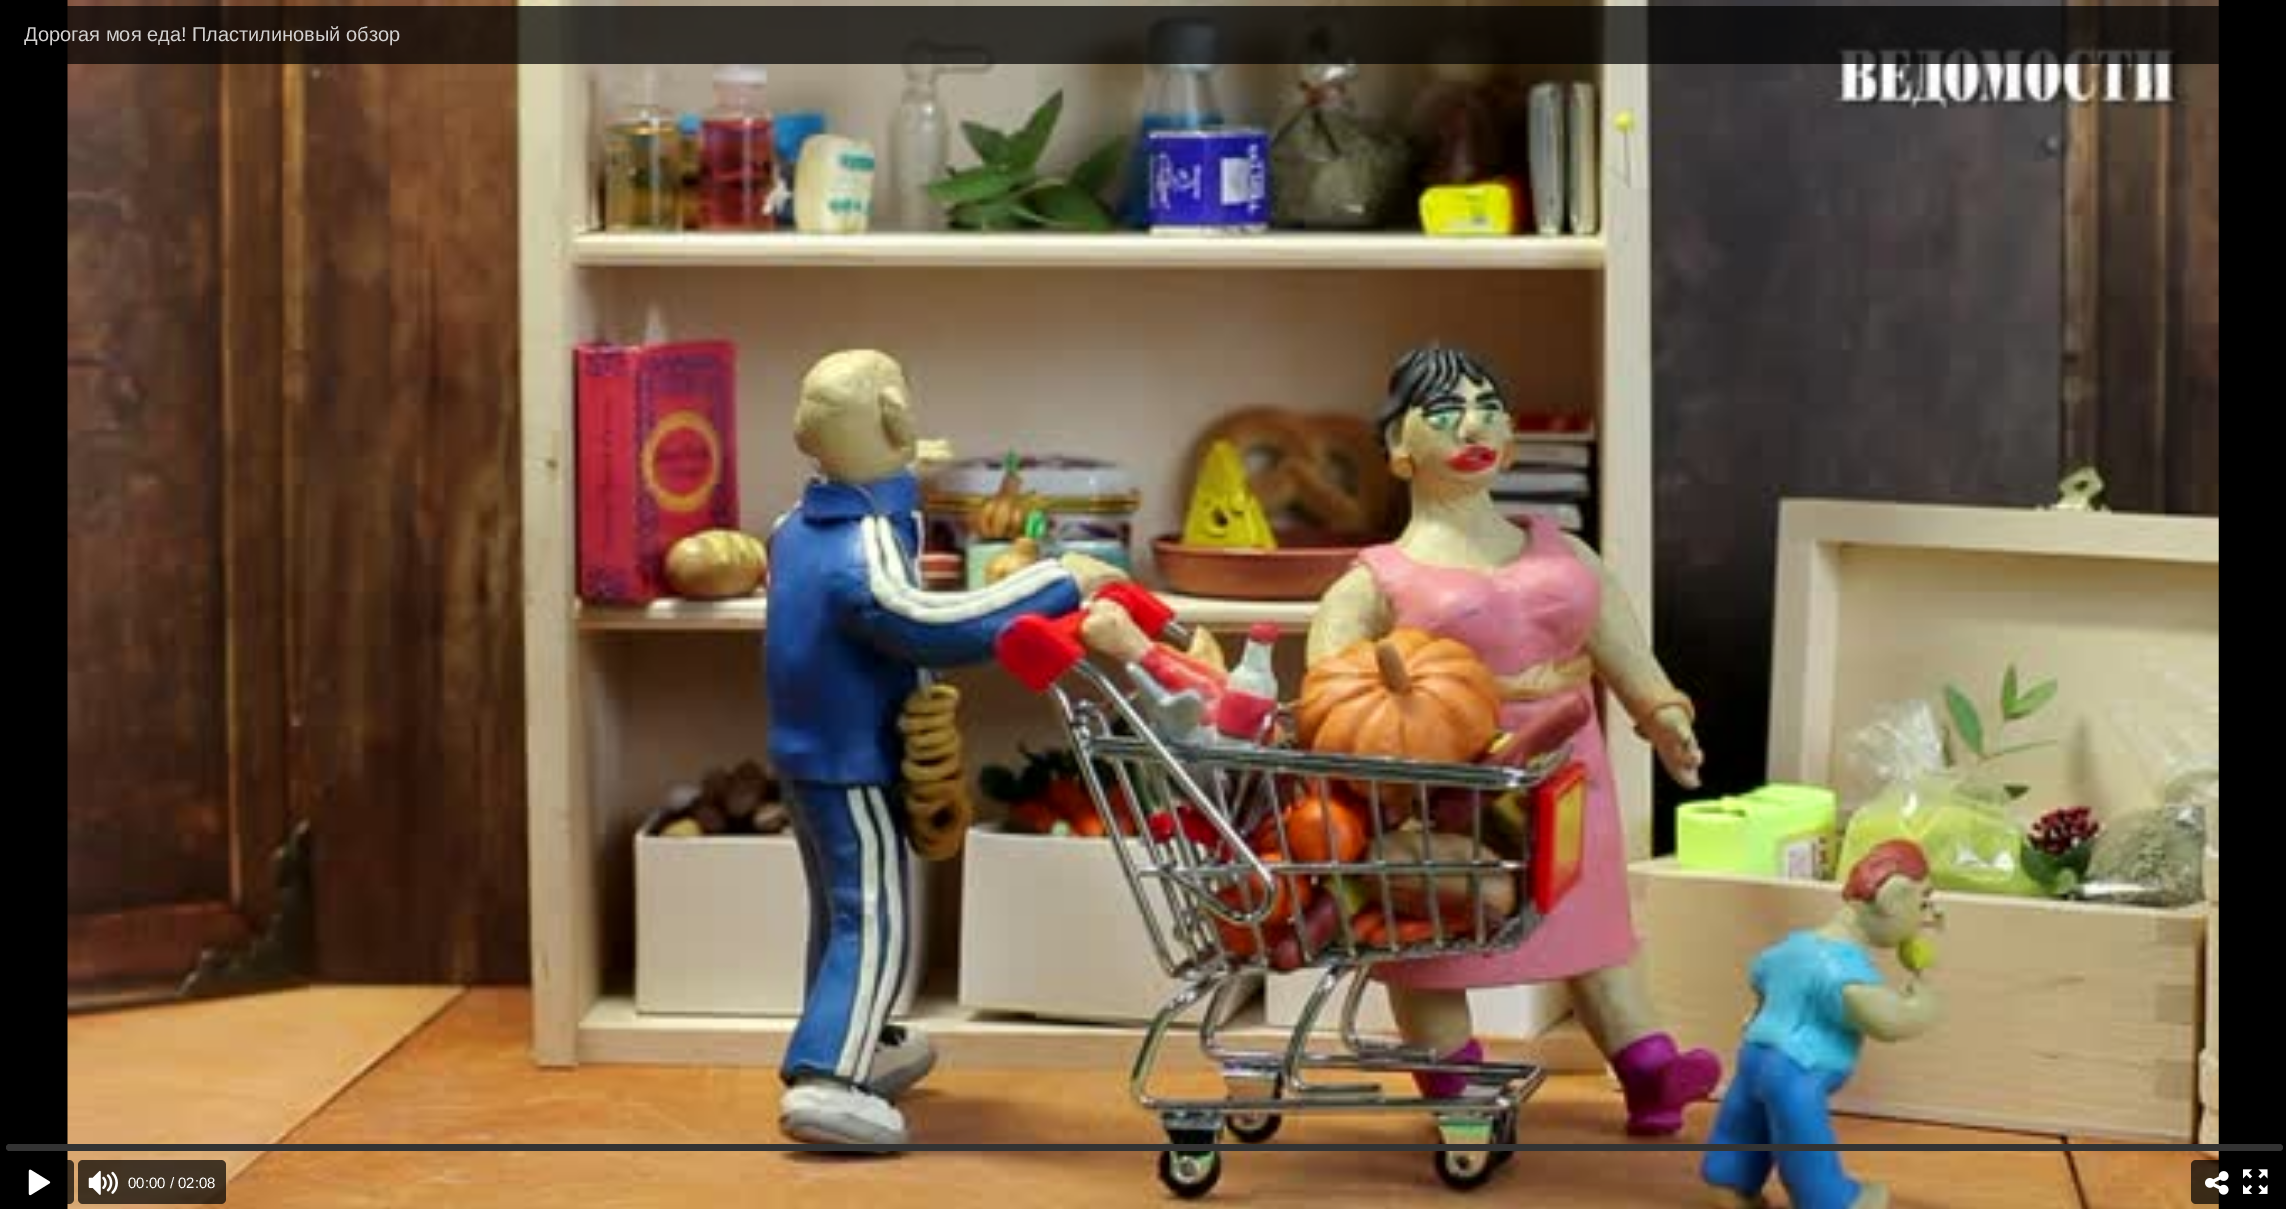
%!PS
<< /PageSize [2286 1209] /PageUsesTransparency true >> setpagedevice
/rgb { dup -16 bitshift 255 div exch dup -8 bitshift 255 and 255 div exch 255 and 255 div setrgbcolor } def
/font { [ exch dup neg 0 0 3 -1 roll 0 0 ] selectfont } def
/text { moveto show } def
/alpha { dup .setfillconstantalpha .setstrokeconstantalpha } def
/roundrect { 5 dict begin { /r /h /w /y /x } { exch def } forall
  x r add y moveto x w add y 2 copy h add r arct x w add y h add x 1 index r arct
  x y h add x y r arct x y 2 copy exch w add exch r arct closepath end } def
/picture { 5 dict begin { /h /w /y /x /name } { exch def } forall
  gsave x y translate w h scale
  w h 8 [w 0 0 h 0 0] name (r) file false 3 colorimage grestore end } def
0 .pushpdf14devicefilter
0 1209 translate 1 -1 scale
4 setmiterlimit
/s1 { /LiberationSans-Regular 20 font 16#D2D0CF rgb } def
/s2 { /LiberationSans-Regular 15 font 16#FFFFFF rgb } def
16#000000 rgb
0 0 2286 1209 rectfill
(pic1.raw) 67 0 2152 1209 picture
0.7 alpha
6 6 2247 58 5 roundrect fill
1 alpha
s1
(Дорогая моя еда! Пластилиновый обзор) 24 41 text
16#333333 rgb
6 1144 2277 7 3.5 roundrect fill
0.7 alpha
16#000000 rgb
6 1160 68 44 5 roundrect fill
1 alpha
(pic2.raw) 28 1169 23 27 picture
0.7 alpha
78 1160 148 44 5 roundrect fill
1 alpha
(pic3.raw) 88 1170 30 25 picture
s2
(00:00 / 02:08) 128 1188 text
0.7 alpha
16#000000 rgb
2191 1160 89 44 5 roundrect fill
1 alpha
(pic4.raw) 2205 1171 24 24 picture
(pic5.raw) 2243 1169 25 25 picture
.poppdf14devicefilter showpage
